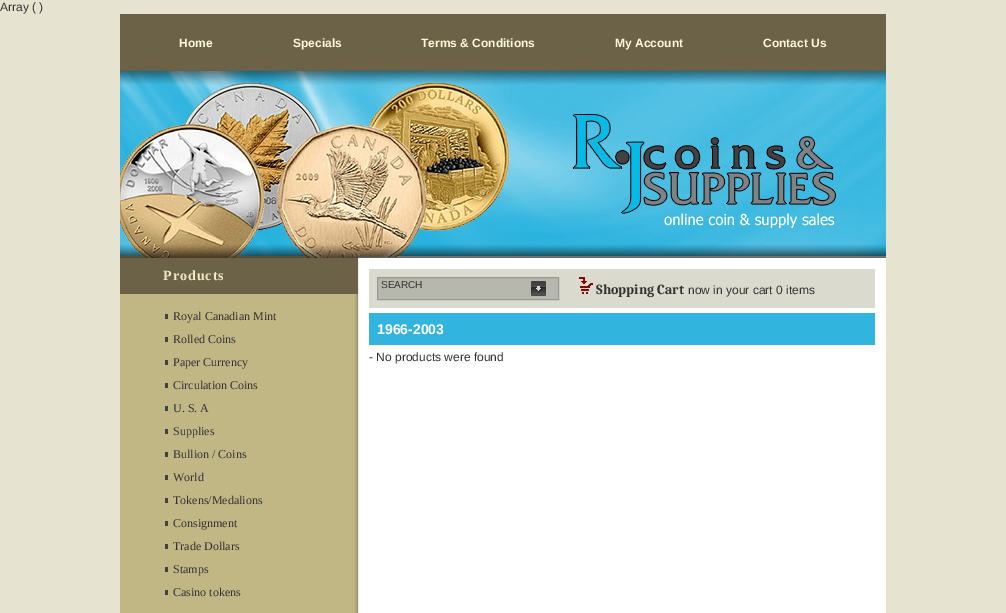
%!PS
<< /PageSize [1006 613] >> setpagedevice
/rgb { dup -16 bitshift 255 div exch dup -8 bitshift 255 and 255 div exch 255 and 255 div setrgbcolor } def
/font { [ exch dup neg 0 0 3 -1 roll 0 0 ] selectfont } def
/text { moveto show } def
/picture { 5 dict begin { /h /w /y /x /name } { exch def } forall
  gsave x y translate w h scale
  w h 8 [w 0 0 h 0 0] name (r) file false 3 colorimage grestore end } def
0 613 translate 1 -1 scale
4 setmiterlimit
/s1 { /LiberationSans-Regular 12 font 16#333333 rgb } def
/s2 { /LiberationSans-Bold 12 font 16#FFF9DA rgb } def
/s3 { /LiberationSerif-Regular 12 font 16#333333 rgb } def
/s4 { /LiberationSans-Regular 10 font 16#333333 rgb } def
/s5 { /Caladea-Bold 14 font 16#333333 rgb } def
/s6 { /LiberationSans-Bold 14 font 16#FFFFFF rgb } def
16#E7E3D1 rgb
0 0 1006 613 rectfill
s1
(Array \( \)) 0 11 text
16#6C6247 rgb
120 14 766 56 rectfill
s2
(Home) 179 47 text
(Specials) 293 47 text
(Terms & Conditions) 421 47 text
(My Account) 615 47 text
(Contact Us) 763 47 text
(pic1.raw) 120 70 766 188 picture
(pic2.raw) 120 258 766 355 picture
16#6C6247 rgb
120 258 238 36 rectfill
/LiberationSerif-Bold 14 font
16#F1E9BF rgb
163 280 moveto 1 0 (Products) ashow
16#414142 rgb
165 314 3 5 rectfill
s3
(Royal Canadian Mint) 173 320 text
16#414142 rgb
165 337 3 5 rectfill
s3
(Rolled Coins) 173 343 text
16#414142 rgb
165 360 3 5 rectfill
s3
(Paper Currency) 173 366 text
16#414142 rgb
165 383 3 5 rectfill
s3
(Circulation Coins) 173 389 text
16#414142 rgb
165 406 3 5 rectfill
s3
(U. S. A) 173 412 text
16#414142 rgb
165 429 3 5 rectfill
s3
(Supplies) 173 435 text
16#414142 rgb
165 452 3 5 rectfill
s3
(Bullion / Coins) 173 458 text
16#414142 rgb
165 475 3 5 rectfill
s3
(World) 173 481 text
16#414142 rgb
165 498 3 5 rectfill
s3
(Tokens/Medalions) 173 504 text
16#414142 rgb
165 521 3 5 rectfill
s3
(Consignment) 173 527 text
16#414142 rgb
165 544 3 5 rectfill
s3
(Trade Dollars) 173 550 text
16#414142 rgb
165 567 3 5 rectfill
s3
(Stamps) 173 573 text
16#414142 rgb
165 590 3 5 rectfill
s3
(Casino tokens) 173 596 text
16#DADBCE rgb
369 269 506 39 rectfill
16#B7B8AD rgb
377.5 277.5 moveto 558.5 277.5 lineto 558.5 299.5 lineto 377.5 299.5 lineto closepath gsave fill grestore
16#999999 rgb
stroke
s4
(SEARCH) 381 288 text
(pic3.raw) 531 281 15 15 picture
(pic4.raw) 579 277 14 17 picture
s5
(Shopping Cart) 596 294 text
s1
(now in your cart 0 items) 688 294 text
16#31B5DF rgb
369 313 506 32 rectfill
s6
(1966-2003) 377 334 text
s1
(- No products were found) 369 361 text
showpage
